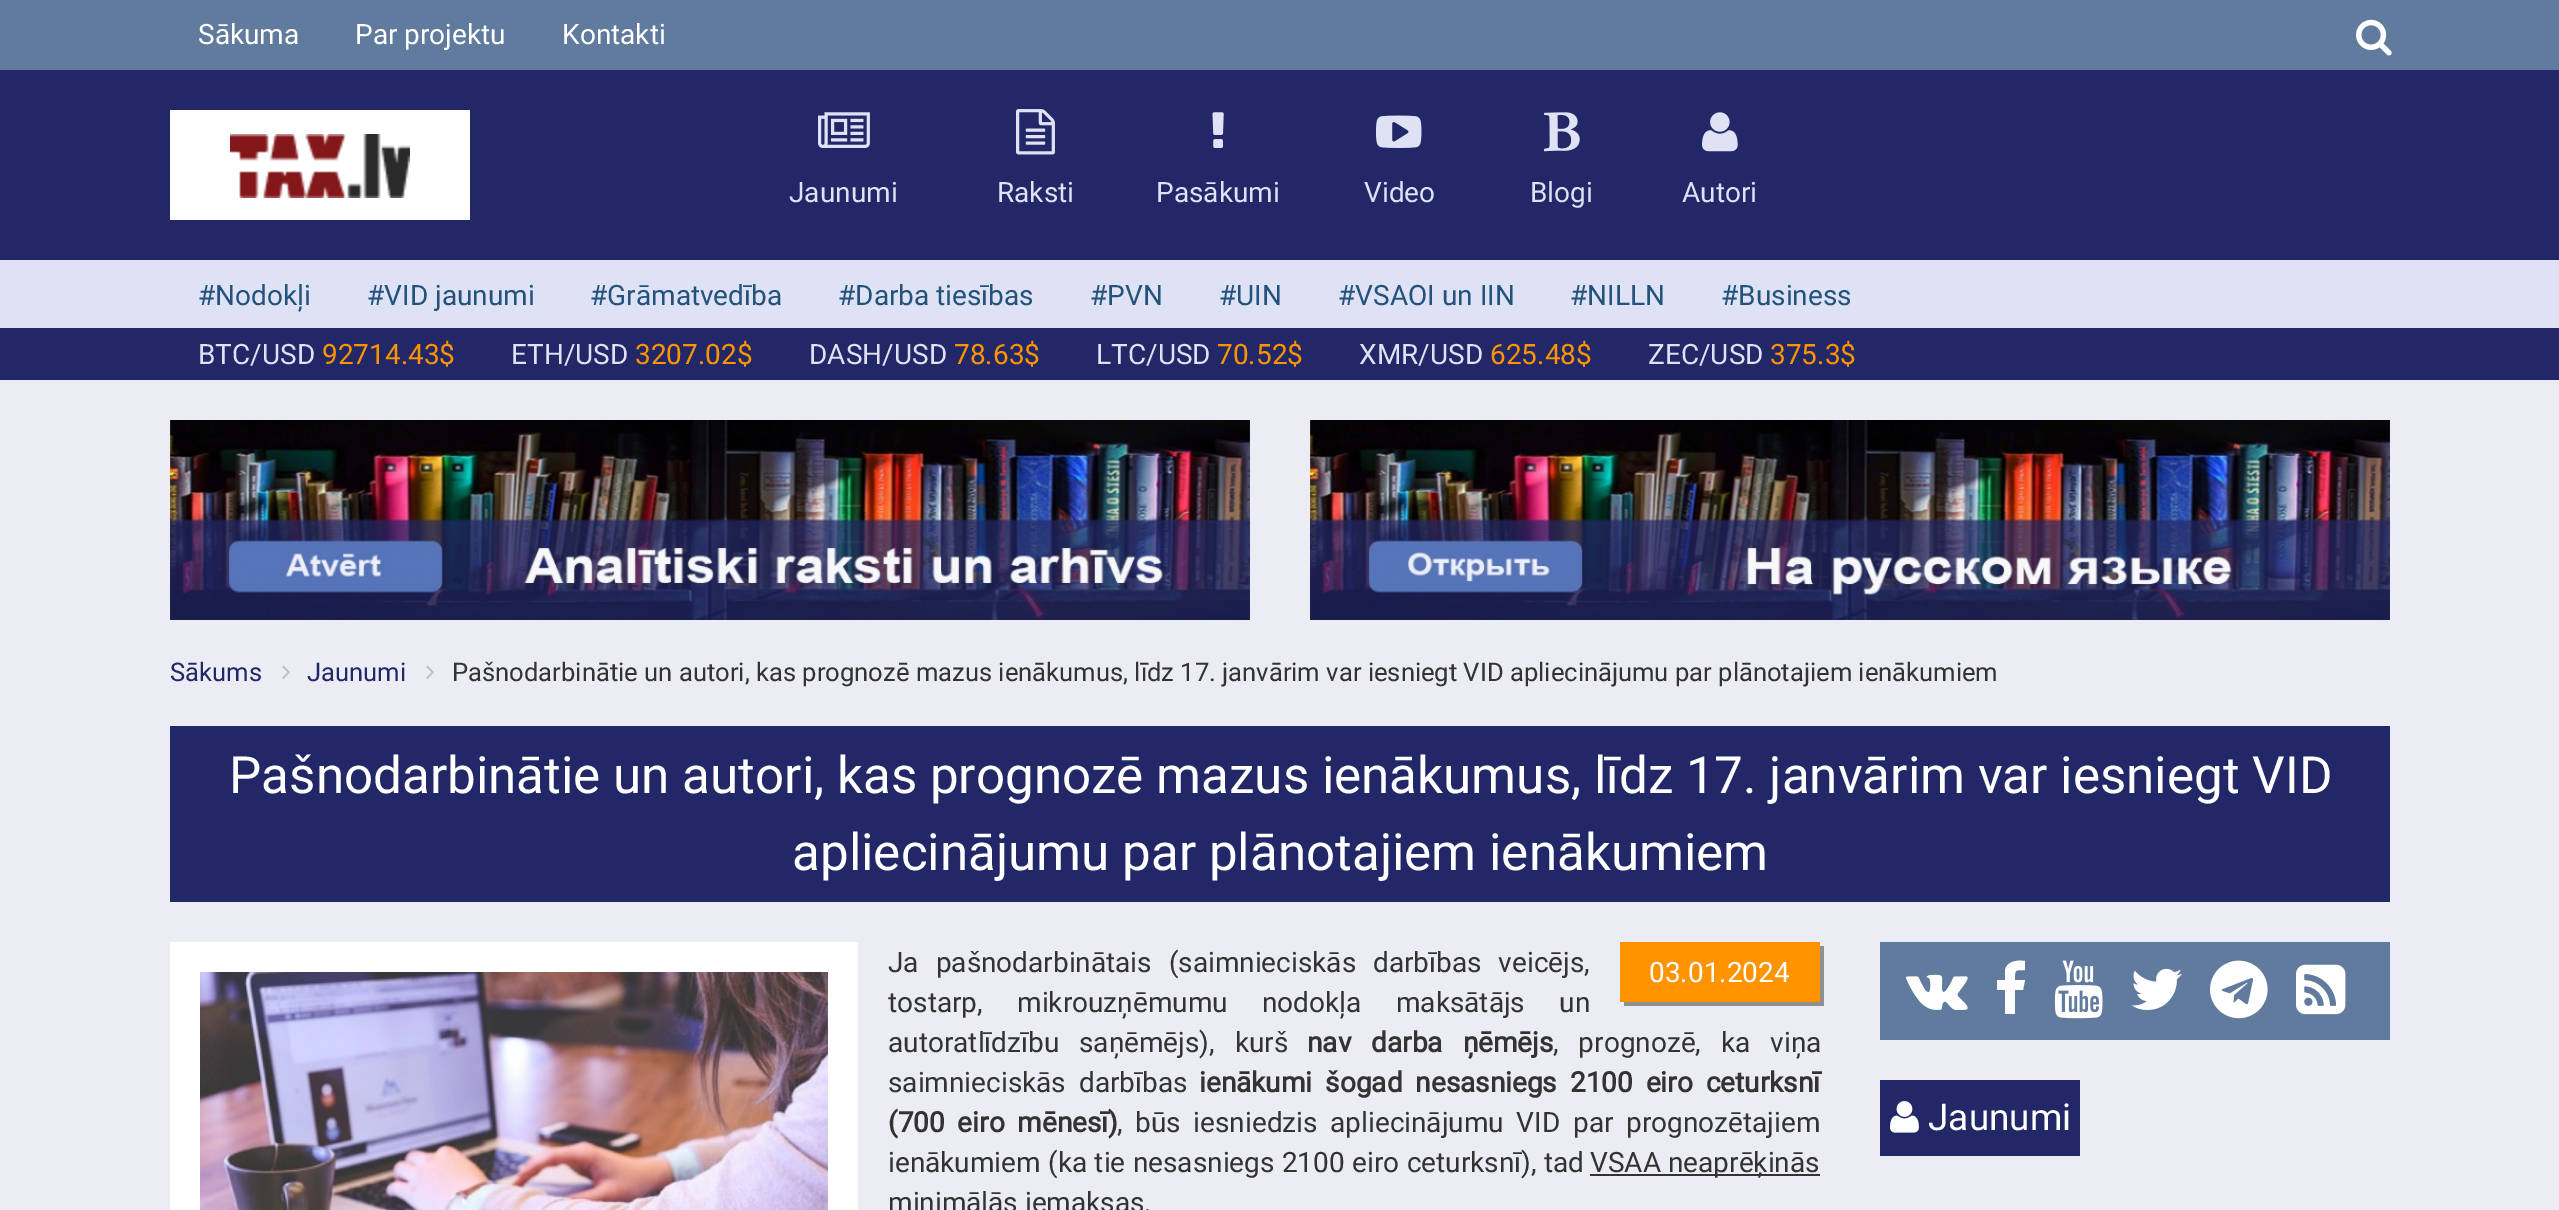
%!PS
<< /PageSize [2559 1210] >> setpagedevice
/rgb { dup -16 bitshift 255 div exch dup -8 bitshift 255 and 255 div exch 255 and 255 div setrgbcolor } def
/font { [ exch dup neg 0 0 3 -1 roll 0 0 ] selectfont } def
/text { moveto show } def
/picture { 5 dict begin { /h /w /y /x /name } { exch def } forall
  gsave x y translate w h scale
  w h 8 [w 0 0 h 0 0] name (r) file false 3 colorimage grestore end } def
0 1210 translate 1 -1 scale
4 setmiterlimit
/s1 { /Roboto-Regular 28 font 16#FFFFFF rgb } def
/s2 { /Roboto-Regular 28 font 16#DEE2F4 rgb } def
/s3 { /Roboto-Regular 28 font 16#23527C rgb } def
/s4 { /Roboto-Regular 28 font 16#FF9400 rgb } def
/s5 { /Roboto-Regular 25.6 font 16#222867 rgb } def
/s6 { /Roboto-Regular 25.6 font 16#333333 rgb } def
/s7 { /Roboto-Regular 51.2 font 16#FFFFFF rgb } def
/s8 { /Roboto-Regular 28 font 16#333333 rgb } def
/s9 { /Roboto-Regular 37 font 16#FFFFFF rgb } def
16#EBECF4 rgb
0 0 2559 1210 rectfill
16#617B9E rgb
0 0 2559 70 rectfill
s1
(Sākuma) 198 44 text
(Par projektu) 355 44 text
(Kontakti) 562 44 text
(pic1.raw) 2356 19 36 37 picture
16#222867 rgb
0 70 2559 190 rectfill
16#FFFFFF rgb
170 110 300 110 rectfill
(pic2.raw) 230 134 180 64 picture
(pic3.raw) 818 112 52 36 picture
s2
(Jaunumi) 789 202 text
(pic4.raw) 1016 109 39 46 picture
(Raksti) 997 202 text
(pic5.raw) 1212 112 12 36 picture
(Pasākumi) 1156 202 text
(pic6.raw) 1376 115 46 33 picture
(Video) 1364 202 text
(pic7.raw) 1544 112 36 40 picture
(Blogi) 1530 202 text
(pic8.raw) 1702 112 36 40 picture
(Autori) 1682 202 text
0 260 2559 68 rectfill
s3
(#Nodokļi) 198 305 text
(#VID jaunumi) 367 305 text
(#Grāmatvedība) 590 305 text
(#Darba tiesības) 838 305 text
(#PVN) 1090 305 text
(#UIN) 1219 305 text
(#VSAOI un IIN) 1338 305 text
(#NILLN) 1570 305 text
(#Business) 1721 305 text
16#222867 rgb
0 328 2559 52 rectfill
s2
(BTC/USD) 198 364 text
s4
(92714.43$) 322 364 text
s2
(ETH/USD) 511 364 text
s4
(3207.02$) 635 364 text
s2
(DASH/USD) 809 364 text
s4
(78.63$) 954 364 text
s2
(LTC/USD) 1096 364 text
s4
(70.52$) 1217 364 text
s2
(XMR/USD) 1359 364 text
s4
(625.48$) 1490 364 text
s2
(ZEC/USD) 1648 364 text
s4
(375.3$) 1770 364 text
(pic9.raw) 170 420 1080 200 picture
(pic10.raw) 1310 420 1080 200 picture
s5
(Sākums) 170 681 text
(pic11.raw) 282 665 8 14 picture
(Jaunumi) 307 681 text
(pic11.raw) 426 665 8 14 picture
s6
(Pašnodarbinātie un autori, kas prognozē mazus ienākumus, līdz 17. janvārim var iesniegt VID apliecinājumu par plānotajiem ienākumiem) 452 681 text
16#222867 rgb
170 726 2220 176 rectfill
s7
(Pašnodarbinātie un autori, kas prognozē mazus ienākumus, līdz 17. janvārim var iesniegt VID) 229 793 text
(apliecinājumu par plānotajiem ienākumiem) 792 870 text
170 942 688 268 rectfill
(pic12.raw) 200 972 628 238 picture
/Roboto-Regular 28 font
16#333333 rgb
888 972 moveto 10 0 32 (Ja pašnodarbinātais \(saimnieciskās darbības veicējs,) widthshow
888 1012 moveto 27.5 0 32 (tostarp, mikrouzņēmumu nodokļa maksātājs un) widthshow
888 1052 moveto 13 0 32 (autoratlīdzību saņēmējs\), kurš) widthshow
/Roboto-Bold 28 font
1307 1052 moveto 13 0 32 (nav darba ņēmējs) widthshow
/Roboto-Regular 28 font
1553 1052 moveto 13 0 32 (, prognozē, ka viņa) widthshow
888 1092 moveto 6 0 32 (saimnieciskās darbības) widthshow
/Roboto-Bold 28 font
1199 1092 moveto 6 0 32 (ienākumi šogad nesasniegs 2100 eiro ceturksnī) widthshow
888 1132 moveto 5.75 0 32 (\(700 eiro mēnesī\)) widthshow
/Roboto-Regular 28 font
1117 1132 moveto 5.75 0 32 (, būs iesniedzis apliecinājumu VID par prognozētajiem) widthshow
888 1172 moveto 0.5 0 32 (ienākumiem \(ka tie nesasniegs 2100 eiro ceturksnī\), tad) widthshow
1590 1174 230 2 rectfill
(VSAA neaprēķinās) 1590 1172 text
(minimālās iemaksas.) 888 1212 text
16#8F9094 rgb
1624 1002 moveto 1624 1006 lineto 1824 1006 lineto 1824 946 lineto 1820 946 lineto 1820 1002 lineto closepath fill
16#FF9400 rgb
1620 942 200 60 rectfill
s1
(03.01.2024) 1649 982 text
16#617B9E rgb
1880 942 510 98 rectfill
(pic13.raw) 1906 974 62 36 picture
16#FFFFFF rgb
2025 961 moveto 2025 970 lineto 2014 970 2015 970 2015 980 curveto 2025 980 lineto 2023 990 lineto 2015 990 lineto 2015 1014 lineto 2005 1014 lineto 2005 990 lineto 1997 990 lineto 1997 980 lineto 2005 980 lineto 2005 970 lineto 2007 961 2017 960 2025 961 curveto closepath fill
(pic14.raw) 2054 960 49 59 picture
(pic15.raw) 2131 968 51 42 picture
(pic16.raw) 2210 960 58 59 picture
(pic17.raw) 2296 964 50 51 picture
16#222867 rgb
1880 1080 200 76 rectfill
(pic18.raw) 1890 1101 29 32 picture
s9
(Jaunumi) 1928 1130 text
showpage
